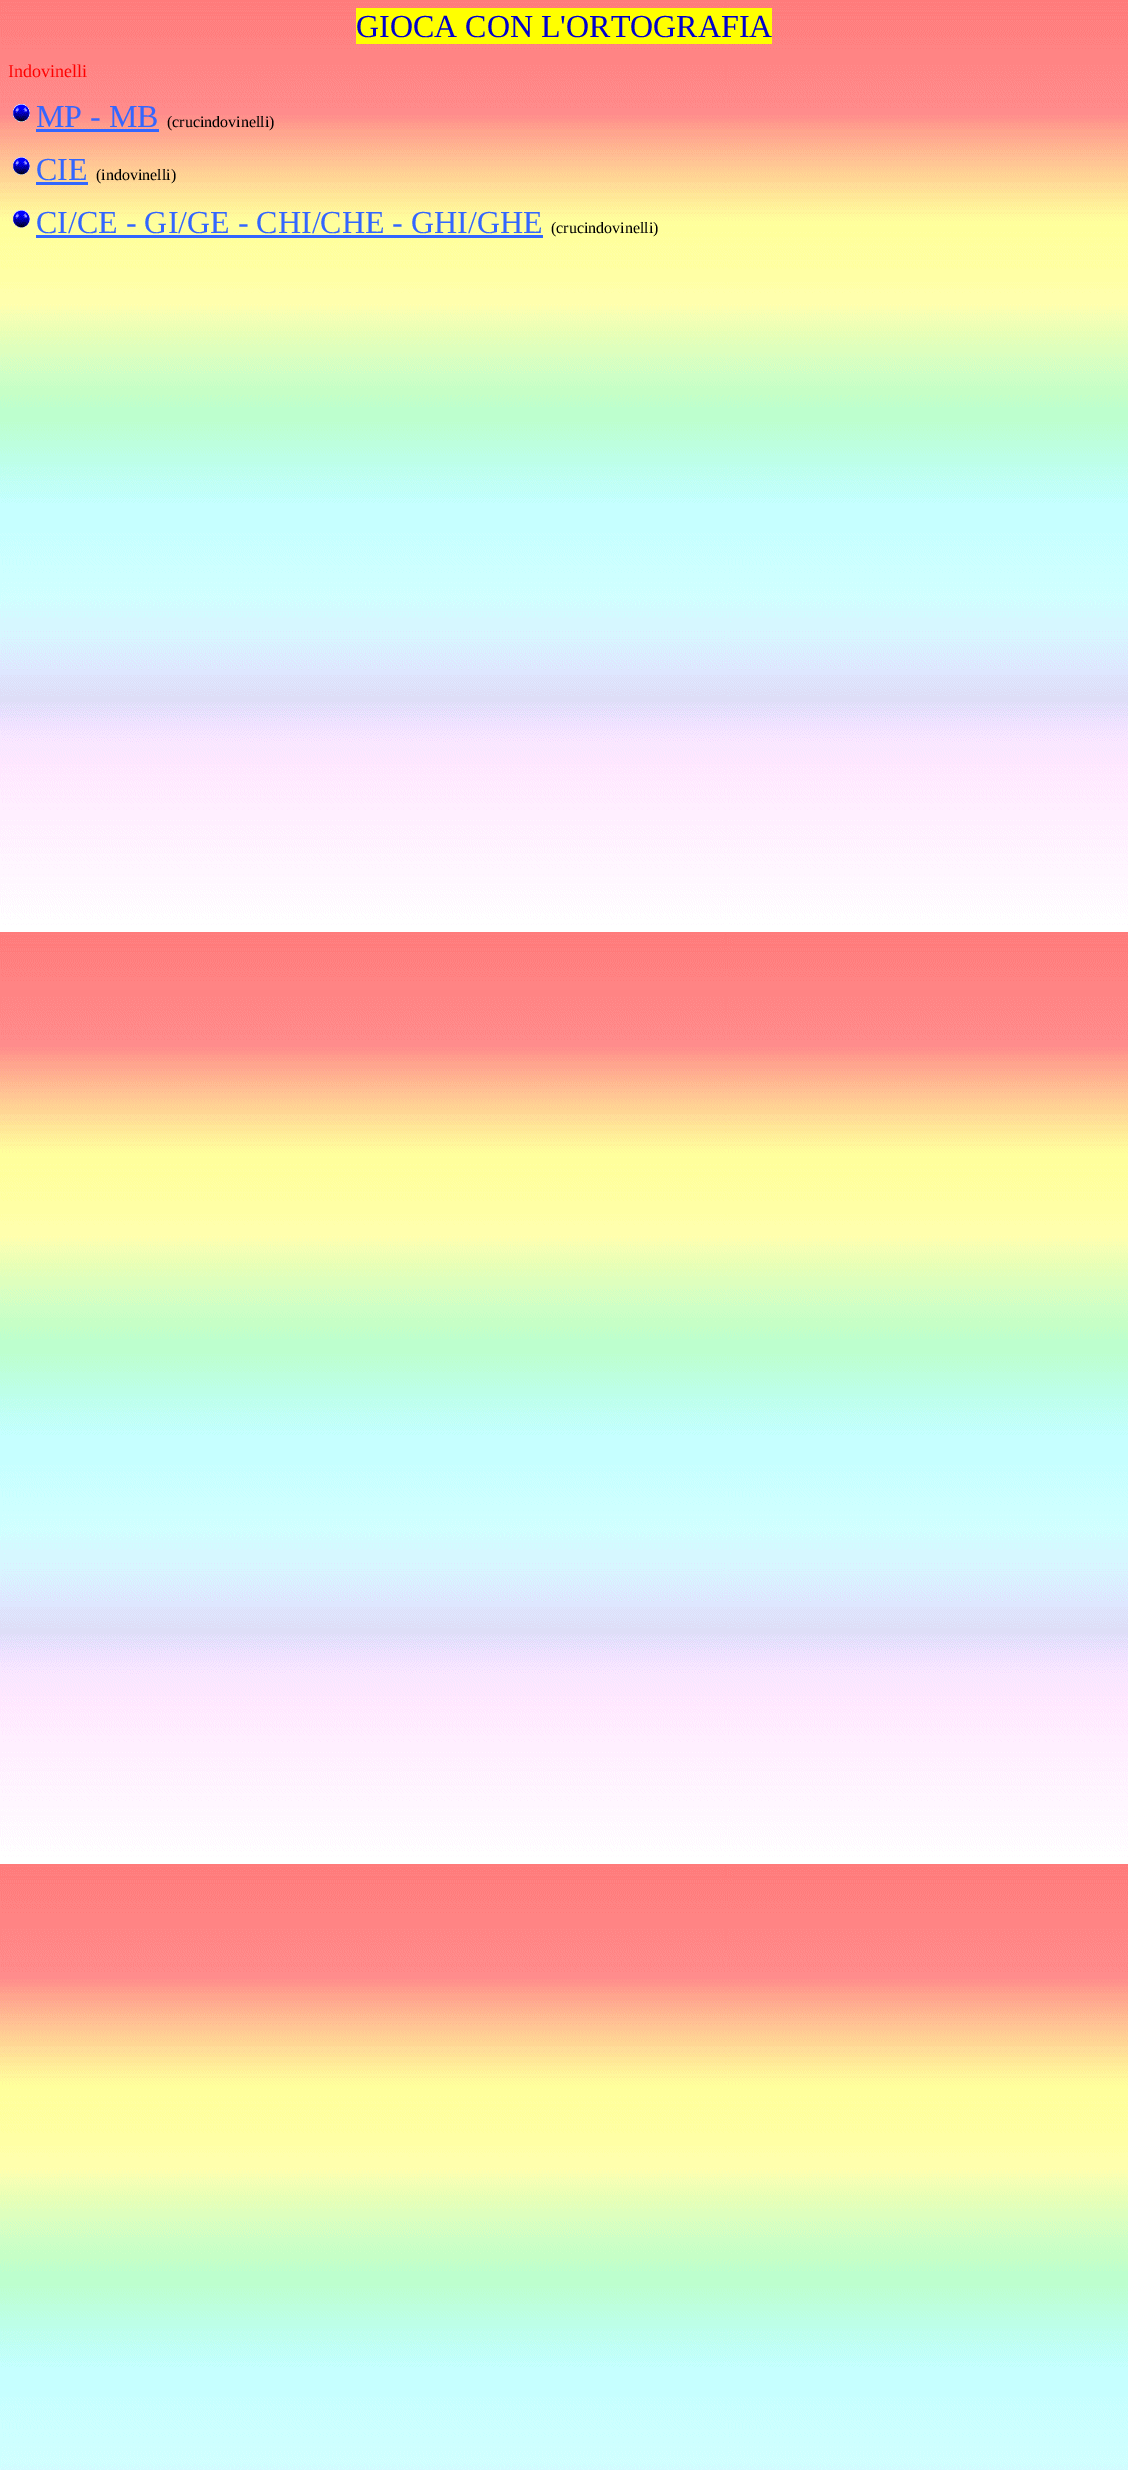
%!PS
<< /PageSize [1128 2470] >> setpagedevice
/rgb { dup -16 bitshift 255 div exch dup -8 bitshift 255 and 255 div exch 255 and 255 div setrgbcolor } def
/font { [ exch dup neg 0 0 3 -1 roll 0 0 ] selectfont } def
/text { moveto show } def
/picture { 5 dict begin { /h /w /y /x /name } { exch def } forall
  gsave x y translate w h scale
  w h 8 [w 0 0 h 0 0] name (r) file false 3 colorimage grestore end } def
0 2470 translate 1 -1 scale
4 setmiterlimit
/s1 { /LiberationSerif-Regular 32 font 16#0000CC rgb } def
/s2 { /LiberationSerif-Regular 18 font 16#FF0000 rgb } def
/s3 { /LiberationSerif-Regular 32 font 16#3366FF rgb } def
/s4 { /LiberationSerif-Regular 16 font 16#000000 rgb } def
16#FFFFFF rgb
0 0 1128 2470 rectfill
(pic1.raw) 0 0 1128 2470 picture
16#FFFF00 rgb
356 8 416 36 rectfill
s1
(GIOCA CON L'ORTOGRAFIA) 356 37 text
s2
(Indovinelli) 8 77 text
(pic2.raw) 13 104 17 18 picture
s3
(MP - MB) 36 127 text
36 129 123 3 rectfill
s4
(\(crucindovinelli\)) 167 127 text
(pic3.raw) 13 157 17 18 picture
s3
(CIE) 36 180 text
36 182 52 3 rectfill
s4
(\(indovinelli\)) 96 180 text
(pic4.raw) 13 210 17 18 picture
s3
(CI/CE - GI/GE - CHI/CHE - GHI/GHE) 36 233 text
36 235 507 3 rectfill
s4
(\(crucindovinelli\)) 551 233 text
showpage
